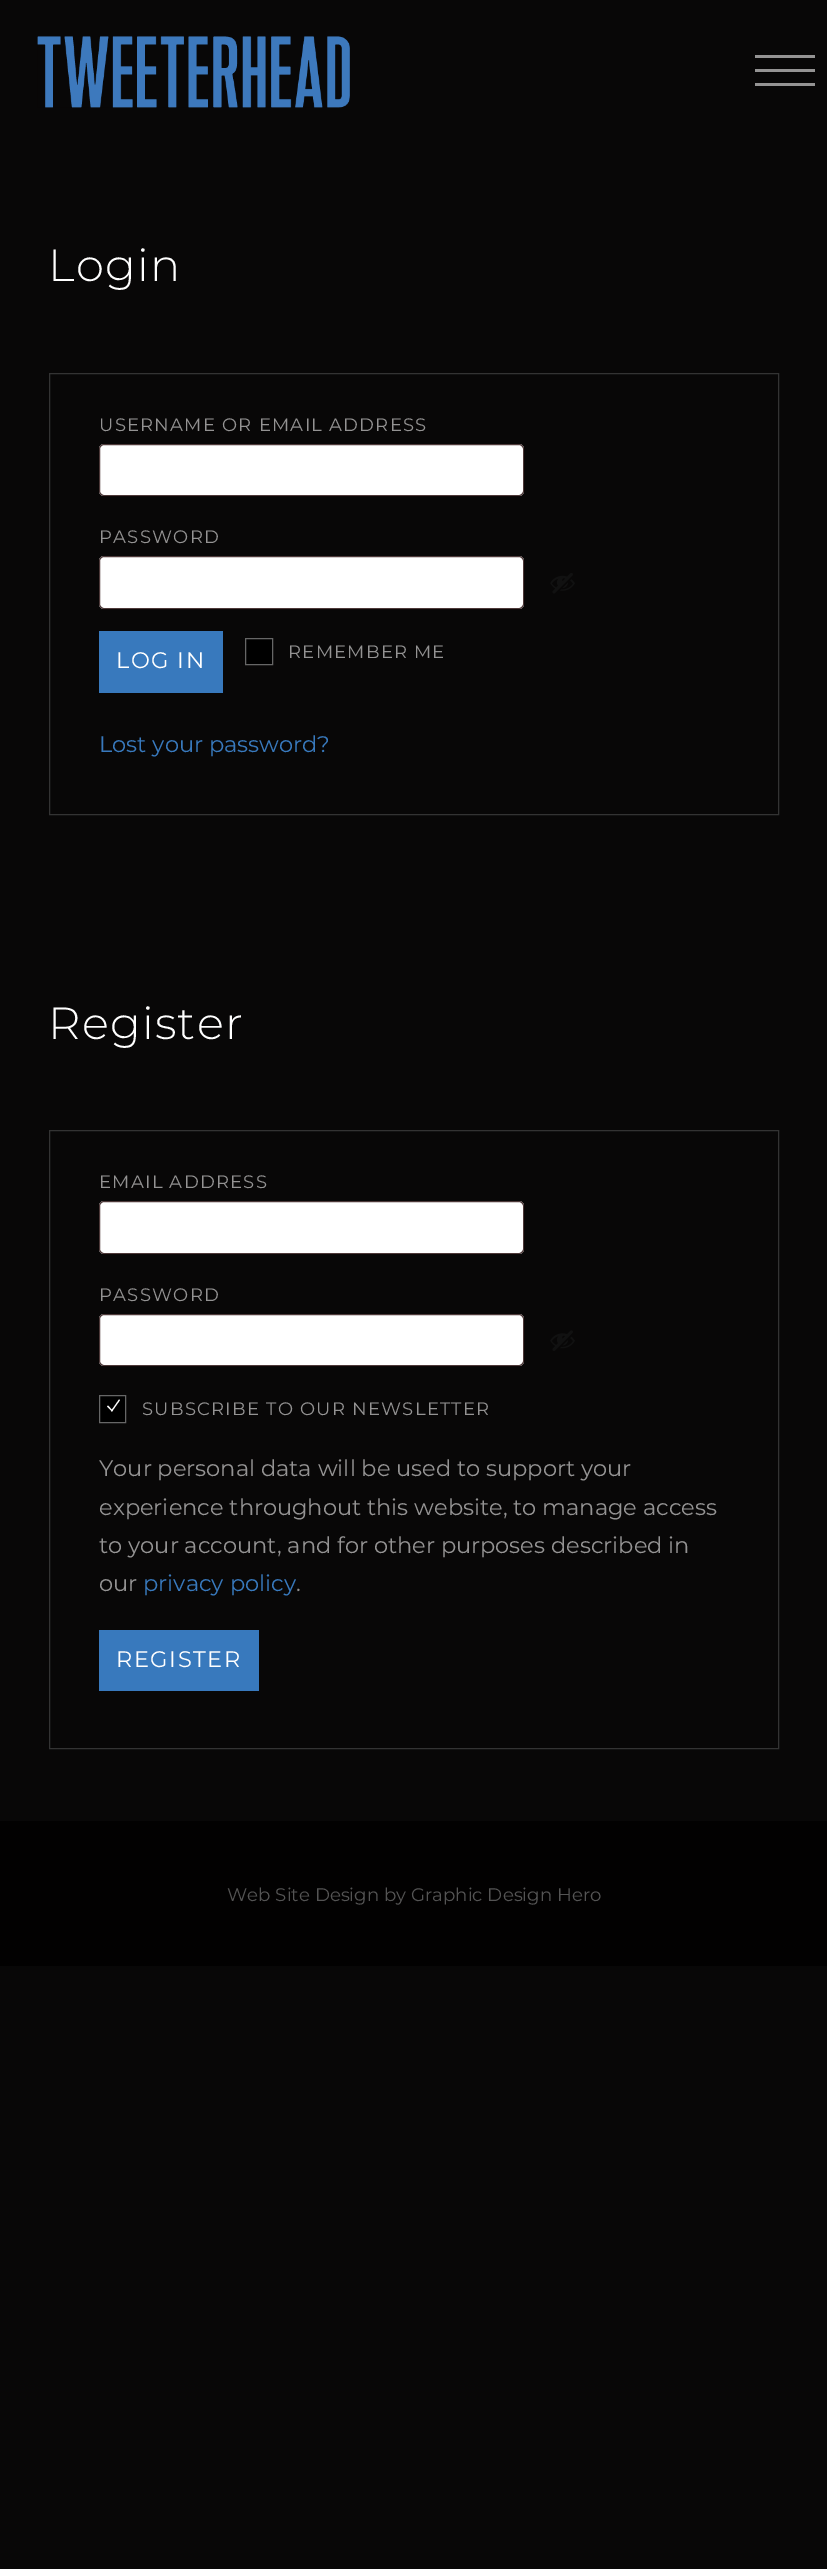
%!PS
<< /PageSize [827 2569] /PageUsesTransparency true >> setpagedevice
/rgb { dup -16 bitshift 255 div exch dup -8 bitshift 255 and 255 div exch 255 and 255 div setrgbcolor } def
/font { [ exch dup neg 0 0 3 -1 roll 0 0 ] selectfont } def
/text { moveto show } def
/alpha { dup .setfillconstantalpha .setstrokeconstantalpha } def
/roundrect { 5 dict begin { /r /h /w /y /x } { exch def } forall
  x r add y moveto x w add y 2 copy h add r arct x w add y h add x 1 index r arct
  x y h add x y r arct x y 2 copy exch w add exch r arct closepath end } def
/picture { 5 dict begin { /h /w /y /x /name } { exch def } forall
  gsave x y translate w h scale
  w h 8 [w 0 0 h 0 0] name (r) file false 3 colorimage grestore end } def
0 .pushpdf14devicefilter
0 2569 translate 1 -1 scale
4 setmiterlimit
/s1 { /Montserrat-Regular 22.5 font 16#3879BD rgb } def
/s2 { /Montserrat-Regular 22.5 font 16#949393 rgb } def
/s3 { /Montserrat-Regular 18.2 font 16#545454 rgb } def
16#080707 rgb
0 0 827 2569 rectfill
(pic1.raw) 37 36 313 72 picture
16#949393 rgb
755 55 60 3 rectfill
755 83 60 3 rectfill
755 69 60 3 rectfill
/Montserrat-Light 45 font
16#FFFFFF rgb
48 281 moveto 1.25 0 (Login) ashow
16#333333 rgb
49.5 373.5 729 441 rectstroke
/Montserrat-Regular 18 font
16#949393 rgb
99 431 moveto 1.25 0 (USERNAME OR EMAIL ADDRESS) ashow
16#FFFFFF rgb
99 444 425 52 5 roundrect fill
0.8 alpha
16#200707 rgb
99.5 444.5 424 51 4.5 roundrect stroke
1 alpha
16#949393 rgb
99 543 moveto 1.25 0 (PASSWORD) ashow
16#FFFFFF rgb
99 556 425 53 5 roundrect fill
0.8 alpha
16#200707 rgb
99.5 556.5 424 52 4.5 roundrect stroke
1 alpha
(pic2.raw) 550 573 25 21 picture
16#3879BD rgb
99 631 124 62 rectfill
/Montserrat-Regular 22.5 font
16#FFFFFF rgb
116 668 moveto 1.5 0 (LOG IN) ashow
16#000000 rgb
245.5 638.5 moveto 272.5 638.5 lineto 272.5 664.5 lineto 245.5 664.5 lineto closepath gsave fill grestore
16#666666 rgb
stroke
/Montserrat-Regular 18 font
16#949393 rgb
288 658 moveto 1.25 0 (REMEMBER ME) ashow
s1
(Lost your password?) 99 752 text
/Montserrat-Light 45 font
16#FFFFFF rgb
48 1039 moveto 1.25 0 (Register) ashow
16#333333 rgb
49.5 1130.5 729 618 rectstroke
/Montserrat-Regular 18 font
16#949393 rgb
99 1188 moveto 1.25 0 (EMAIL ADDRESS) ashow
16#FFFFFF rgb
99 1201 425 53 5 roundrect fill
0.8 alpha
16#200707 rgb
99.5 1201.5 424 52 4.5 roundrect stroke
1 alpha
16#949393 rgb
99 1301 moveto 1.25 0 (PASSWORD) ashow
16#FFFFFF rgb
99 1314 425 52 5 roundrect fill
0.8 alpha
16#200707 rgb
99.5 1314.5 424 51 4.5 roundrect stroke
1 alpha
(pic3.raw) 550 1330 25 21 picture
16#000000 rgb
99.5 1395.5 moveto 125.5 1395.5 lineto 125.5 1422.5 lineto 99.5 1422.5 lineto closepath gsave fill grestore
16#666666 rgb
stroke
16#FFFFFF rgb
111 1411 moveto 119 1399.5 lineto 120 1400 lineto 112 1411.5 lineto closepath fill
107 1406.5 moveto 108 1405.5 lineto 112.5 1410.5 lineto 112 1411.5 lineto closepath fill
16#949393 rgb
142 1415 moveto 1.25 0 (SUBSCRIBE TO OUR NEWSLETTER) ashow
s2
(Your personal data will be used to support your) 99 1476 text
(experience throughout this website, to manage access) 99 1515 text
(to your account, and for other purposes described in) 99 1553 text
(our) 99 1591 text
s1
(privacy policy) 143 1591 text
s2
(.) 296 1591 text
16#3879BD rgb
99 1630 160 61 rectfill
16#FFFFFF rgb
116 1667 moveto 1.5 0 (REGISTER) ashow
16#020101 rgb
0 1821 827 145 rectfill
s3
(Web Site Design by Graphic Design Hero) 227 1901 text
.poppdf14devicefilter showpage
